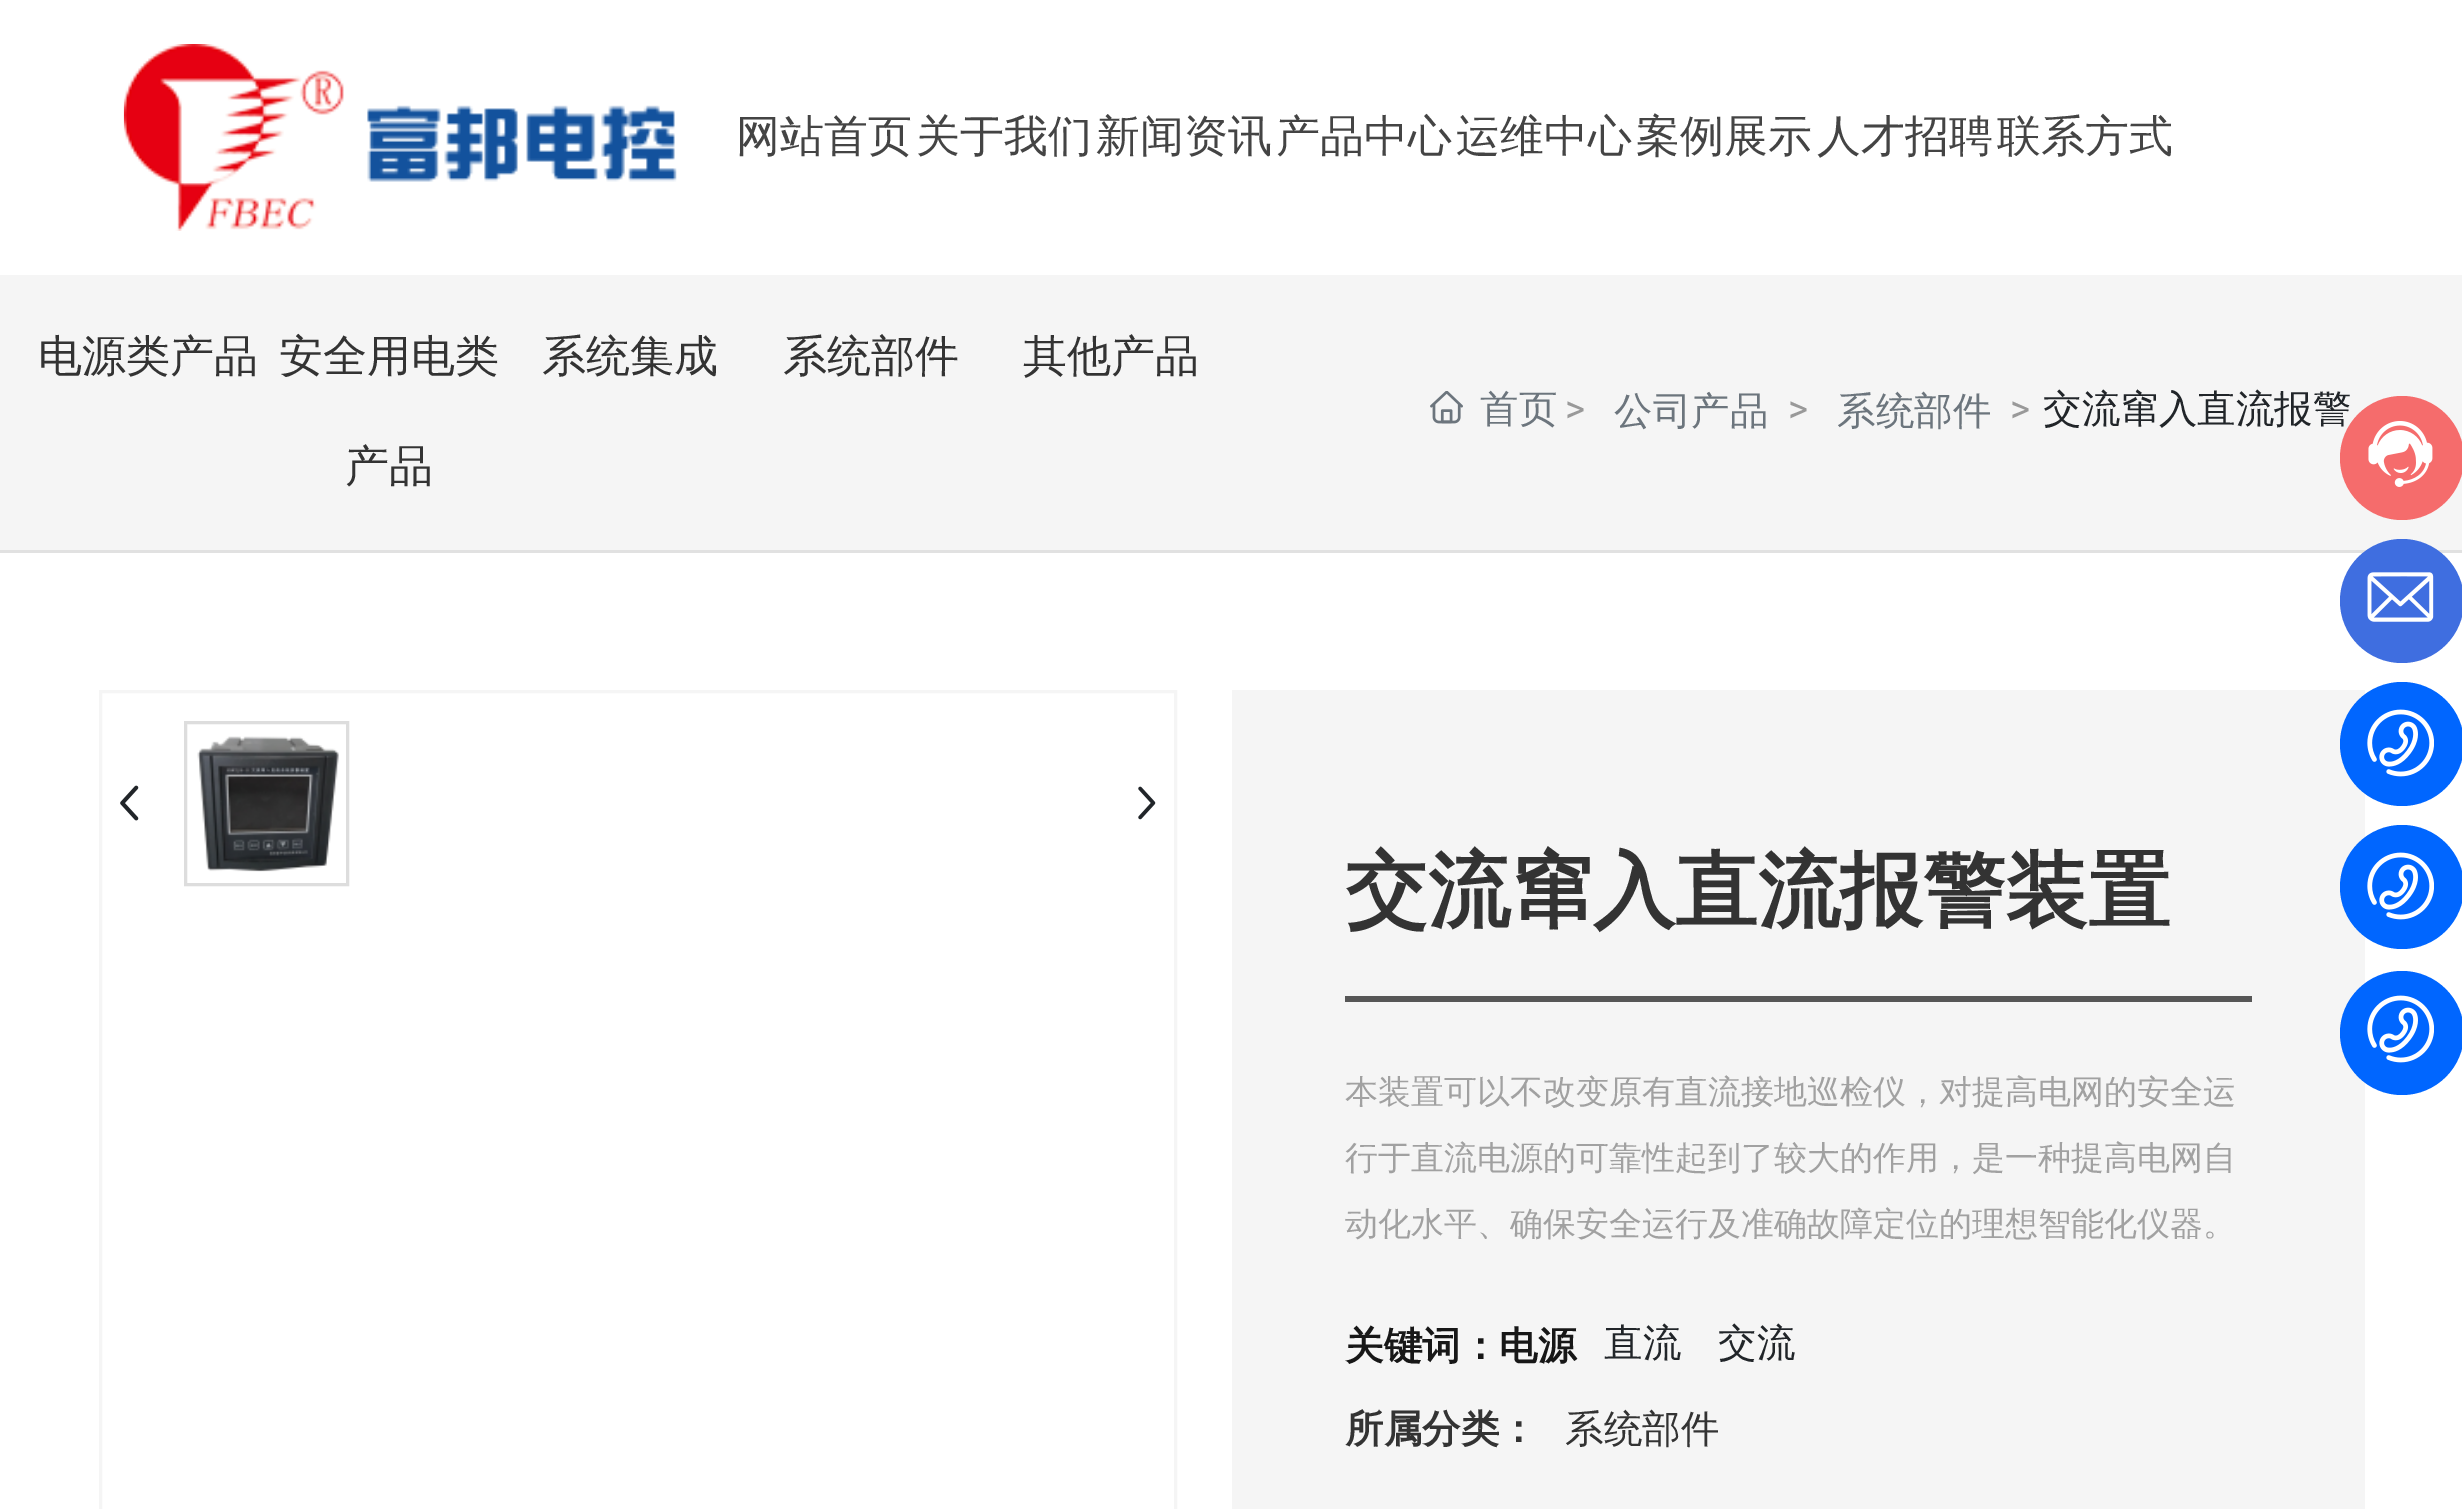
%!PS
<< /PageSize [2462 1509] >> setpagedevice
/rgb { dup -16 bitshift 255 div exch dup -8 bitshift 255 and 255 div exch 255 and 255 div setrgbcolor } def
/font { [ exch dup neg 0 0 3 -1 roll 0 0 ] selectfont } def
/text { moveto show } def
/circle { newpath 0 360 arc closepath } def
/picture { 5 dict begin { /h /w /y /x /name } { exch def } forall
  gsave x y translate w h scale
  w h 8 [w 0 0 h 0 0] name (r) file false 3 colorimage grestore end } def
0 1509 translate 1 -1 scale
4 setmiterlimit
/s1 { /WenQuanYiZenHei-Medium 44 font 16#444444 rgb } def
/s2 { /WenQuanYiZenHei-Medium 44 font 16#333333 rgb } def
/s3 { /WenQuanYiZenHei-Medium 38.5 font 16#6C757D rgb } def
/s4 { /Roboto-Regular 38.5 font 16#999999 rgb } def
/s5 { /WenQuanYiZenHei-Medium 38.5 font 16#212529 rgb } def
/s6 { /WenQuanYiZenHei-Bold 82.5 font 16#333333 rgb } def
/s7 { /WenQuanYiZenHei-Medium 33 font 16#A1A1A1 rgb } def
/s8 { /WenQuanYiZenHei-Bold 38.5 font 16#171717 rgb } def
/s9 { /WenQuanYiZenHei-Bold 38.5 font 16#333333 rgb } def
/s10 { /WenQuanYiZenHei-Medium 38.5 font 16#333333 rgb } def
16#FFFFFF rgb
0 0 2462 1509 rectfill
(pic1.raw) 123 44 554 187 picture
s1
(网站首页) 736 151 text
(关于我们) 916 151 text
(新闻资讯) 1096 151 text
(产品中心) 1276 151 text
(运维中心) 1456 151 text
(案例展示) 1636 151 text
(人才招聘) 1817 151 text
(联系方式) 1997 151 text
16#F5F5F5 rgb
0 275 2462 275 rectfill
16#E1E1E1 rgb
0 550 2462 3 rectfill
s2
(电源类产品) 38 371 text
(安全用电类) 279 371 text
(产品) 345 481 text
(系统集成) 542 371 text
(系统部件) 783 371 text
(其他产品) 1023 371 text
(pic2.raw) 1430 391 33 33 picture
s3
(首页) 1480 422 text
s4
(>) 1565 422 text
s3
(公司产品) 1614 424 text
s4
(>) 1788 422 text
s3
(系统部件) 1837 424 text
s4
(>) 2010 422 text
s5
(交流窜入直流报警) 2043 422 text
16#F5F5F5 rgb
3 setlinewidth
100.5 691.5 1075 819 rectstroke
16#DDDDDD rgb
185.5 722.5 162 162 rectstroke
(pic3.raw) 197 736 142 136 picture
(pic4.raw) 120 785 19 36 picture
(pic5.raw) 1138 786 18 34 picture
16#F5F5F5 rgb
1232 690 1133 819 rectfill
s6
(交流窜入直流报警装置) 1345 919 text
16#565656 rgb
1345 996 907 6 rectfill
s7
(本装置可以不改变原有直流接地巡检仪，对提高电网的安全运) 1345 1103 text
(行于直流电源的可靠性起到了较大的作用，是一种提高电网自) 1345 1169 text
(动化水平、确保安全运行及准确故障定位的理想智能化仪器。) 1345 1235 text
s8
(关键词：电源) 1345 1359 text
s5
(直流) 1604 1356 text
(交流) 1718 1356 text
s9
(所属分类：) 1345 1442 text
s10
(系统部件) 1565 1442 text
16#F56C6C rgb
2402 458 62 circle fill
(pic6.raw) 2368 421 65 66 picture
16#3F6EE0 rgb
2402 601 62 circle fill
(pic7.raw) 2367 572 67 50 picture
16#0066FF rgb
2402 744 62 circle fill
(pic8.raw) 2367 709 67 68 picture
2402 887 62 circle fill
(pic8.raw) 2367 852 67 68 picture
2402 1033 62 circle fill
(pic8.raw) 2367 995 67 68 picture
showpage
